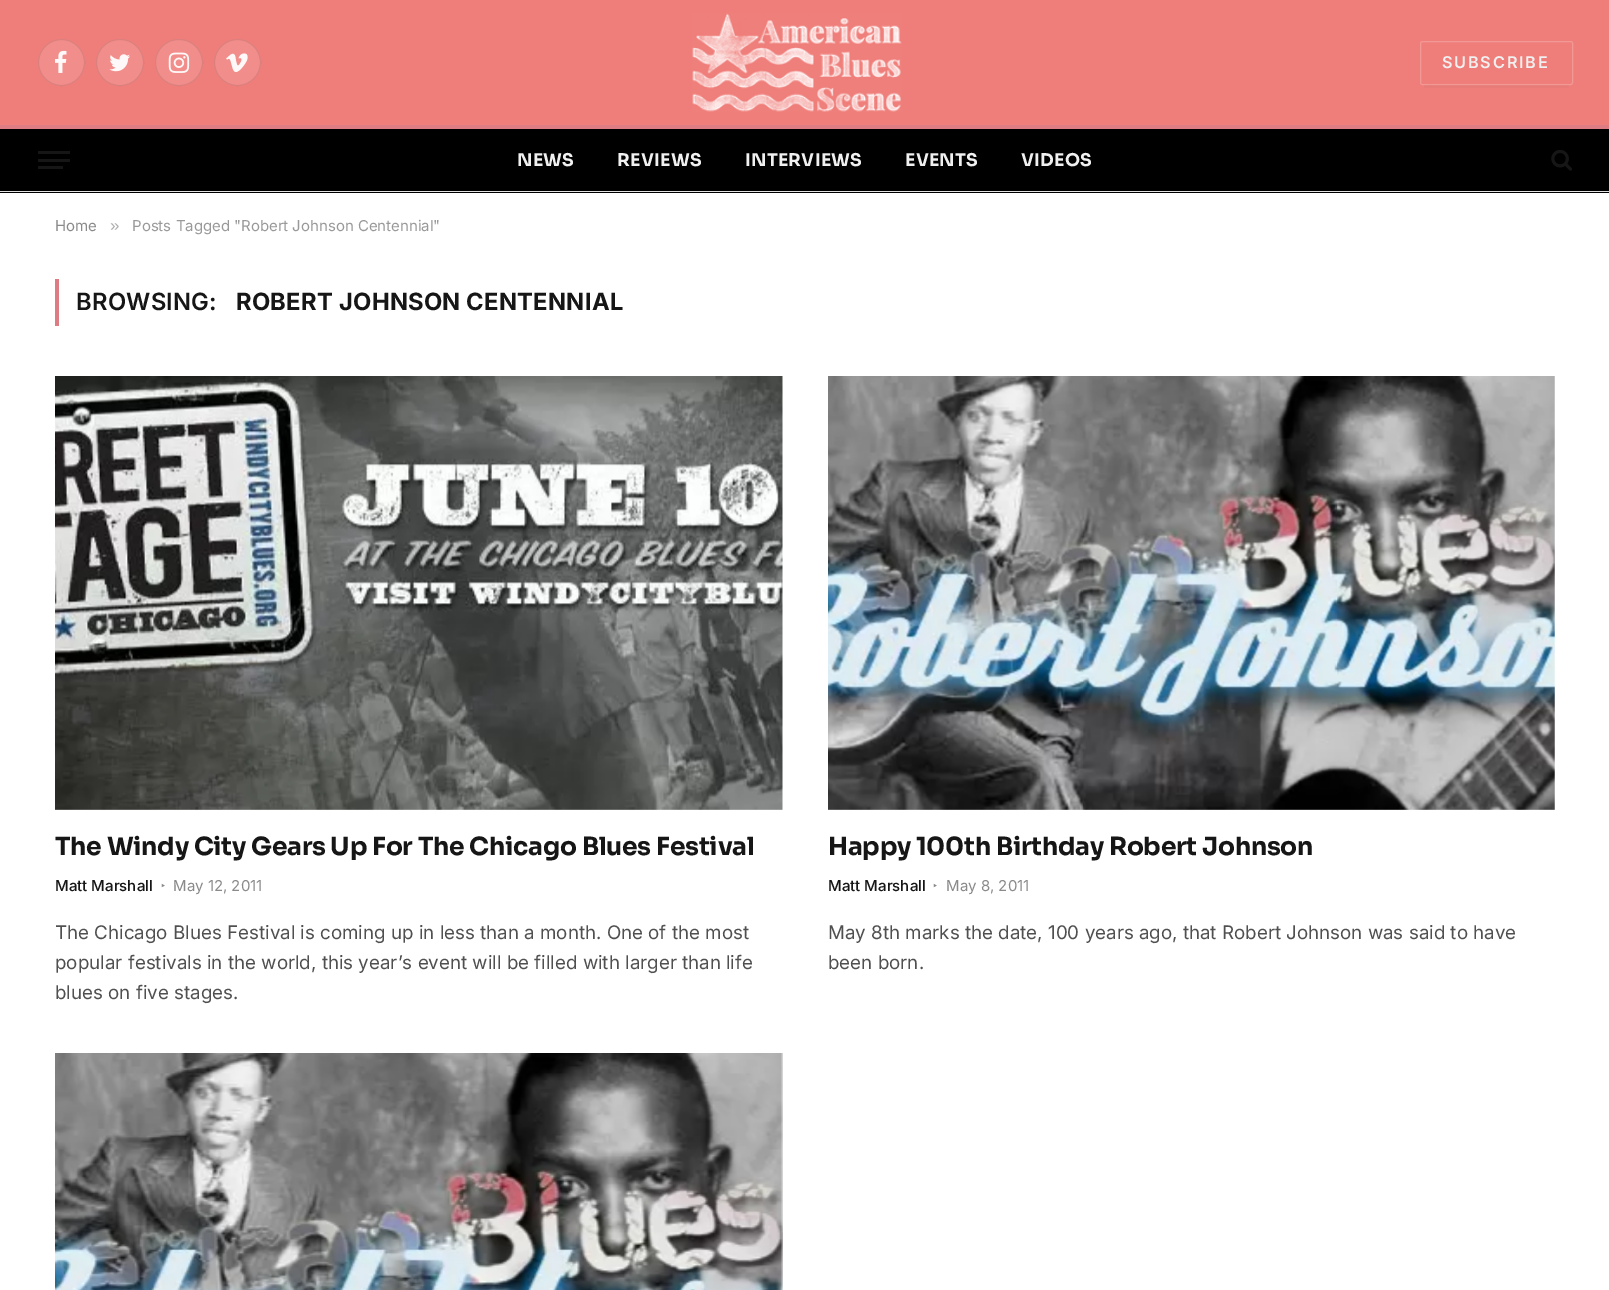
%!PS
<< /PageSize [1609 1290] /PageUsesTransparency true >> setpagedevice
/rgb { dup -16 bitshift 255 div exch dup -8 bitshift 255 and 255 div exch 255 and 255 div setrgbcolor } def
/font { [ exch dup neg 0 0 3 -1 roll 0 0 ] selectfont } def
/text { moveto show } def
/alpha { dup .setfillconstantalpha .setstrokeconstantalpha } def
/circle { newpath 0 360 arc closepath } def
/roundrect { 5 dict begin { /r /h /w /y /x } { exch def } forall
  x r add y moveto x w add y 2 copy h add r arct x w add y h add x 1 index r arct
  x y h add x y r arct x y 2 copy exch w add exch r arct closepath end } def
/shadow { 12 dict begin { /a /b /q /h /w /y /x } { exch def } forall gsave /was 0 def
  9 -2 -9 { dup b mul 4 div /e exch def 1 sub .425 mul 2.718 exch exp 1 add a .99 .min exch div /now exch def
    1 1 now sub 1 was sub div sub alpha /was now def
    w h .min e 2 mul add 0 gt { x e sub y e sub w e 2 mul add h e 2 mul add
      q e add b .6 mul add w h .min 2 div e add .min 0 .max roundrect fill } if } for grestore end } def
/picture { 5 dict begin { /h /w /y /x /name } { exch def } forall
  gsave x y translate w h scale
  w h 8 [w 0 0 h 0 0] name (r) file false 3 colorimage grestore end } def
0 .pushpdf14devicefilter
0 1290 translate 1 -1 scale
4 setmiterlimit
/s1 { /Inter-Regular 15 font 16#8A8A8A rgb } def
/s2 { /LiberationSans-Regular 17 font 16#ADADAD rgb } def
/s3 { /Inter-Regular 15 font 16#999999 rgb } def
/s4 { /Inter-Medium 15 font 16#161616 rgb } def
/s5 { /NotoSans-Regular 12 font 16#8A8A8A rgb } def
/s6 { /Inter-Regular 18.75 font 16#505050 rgb } def
16#FFFFFF rgb
0 0 1609 1290 rectfill
16#EF7E7A rgb
0 0 1609 125 rectfill
16#F18D8A rgb
61.5 62.5 23.5 circle fill
0.09 alpha
16#000000 rgb
61.5 62.5 23 circle stroke
1 alpha
(pic1.raw) 55 50 12 23 picture
16#F18D8A rgb
96 39 48 47 23.5 roundrect fill
0.09 alpha
16#000000 rgb
96.5 39.5 47 46 23 roundrect stroke
1 alpha
(pic2.raw) 109 54 21 18 picture
16#F18D8A rgb
155 39 48 47 23.5 roundrect fill
0.09 alpha
16#000000 rgb
155.5 39.5 47 46 23 roundrect stroke
1 alpha
(pic3.raw) 168 52 22 21 picture
16#F18D8A rgb
237.5 62.5 23.5 circle fill
0.09 alpha
16#000000 rgb
237.5 62.5 23 circle stroke
1 alpha
(pic4.raw) 226 53 22 19 picture
(pic5.raw) 692 13 210 99 picture
gsave
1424 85 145 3 rectclip
1425 49 143 34 0 4.5 0.16 shadow
grestore
0.2 alpha
16#FFFFFF rgb
1420.5 41.5 152 43 2 roundrect stroke
/Inter-SemiBold 16.25 font
1 alpha
16#F0F0F0 rgb
1442 68 moveto 1.75 0 (SUBSCRIBE) ashow
16#000000 rgb
0 129 1609 64 rectfill
16#DD7C82 rgb
0 125 1609 4 rectfill
16#E2E2E2 rgb
0 191 1609 1 rectfill
16#161616 rgb
38 166 25 3 rectfill
38 151 32 3 rectfill
38 159 32 3 rectfill
/Sora-Bold 17.5 font
16#F0F0F0 rgb
517 166 moveto 0.25 0 (NEWS) ashow
617 166 moveto 0.25 0 (REVIEWS) ashow
745 166 moveto 0.25 0 (INTERVIEWS) ashow
905 166 moveto 0.25 0 (EVENTS) ashow
1021 166 moveto 0.25 0 (VIDEOS) ashow
(pic6.raw) 1551 150 21 21 picture
s1
(Home) 55 231 text
s2
(») 110 231 text
s3
(Posts Tagged "Robert Johnson Centennial") 132 231 text
16#DD7C82 rgb
55 279 4 47 rectfill
/Inter-SemiBold 23.75 font
16#161616 rgb
76 310 moveto 0.25 0 (BROWSING:) ashow
/Inter-Bold 23.75 font
236 310 moveto 0.25 0 (ROBERT JOHNSON CENTENNIAL) ashow
(pic7.raw) 55 376 728 434 picture
/Sora-Bold 25 font
55 855 moveto -0.25 0 (The Windy City Gears Up For The Chicago Blues Festival) ashow
s4
(Matt Marshall) 55 891 text
s5
(‣) 161 890 text
s1
(May 12, 2011) 173 891 text
s6
(The Chicago Blues Festival is coming up in less than a month. One of the most) 55 939 text
(popular festivals in the world, this year’s event will be filled with larger than life) 55 969 text
(blues on five stages.) 55 999 text
(pic8.raw) 828 376 727 434 picture
/Sora-Bold 25 font
16#161616 rgb
828 855 moveto -0.25 0 (Happy 100th Birthday Robert Johnson) ashow
s4
(Matt Marshall) 828 891 text
s5
(‣) 933 890 text
s1
(May 8, 2011) 946 891 text
s6
(May 8th marks the date, 100 years ago, that Robert Johnson was said to have) 828 939 text
(been born.) 828 969 text
(pic9.raw) 55 1053 728 237 picture
.poppdf14devicefilter showpage
